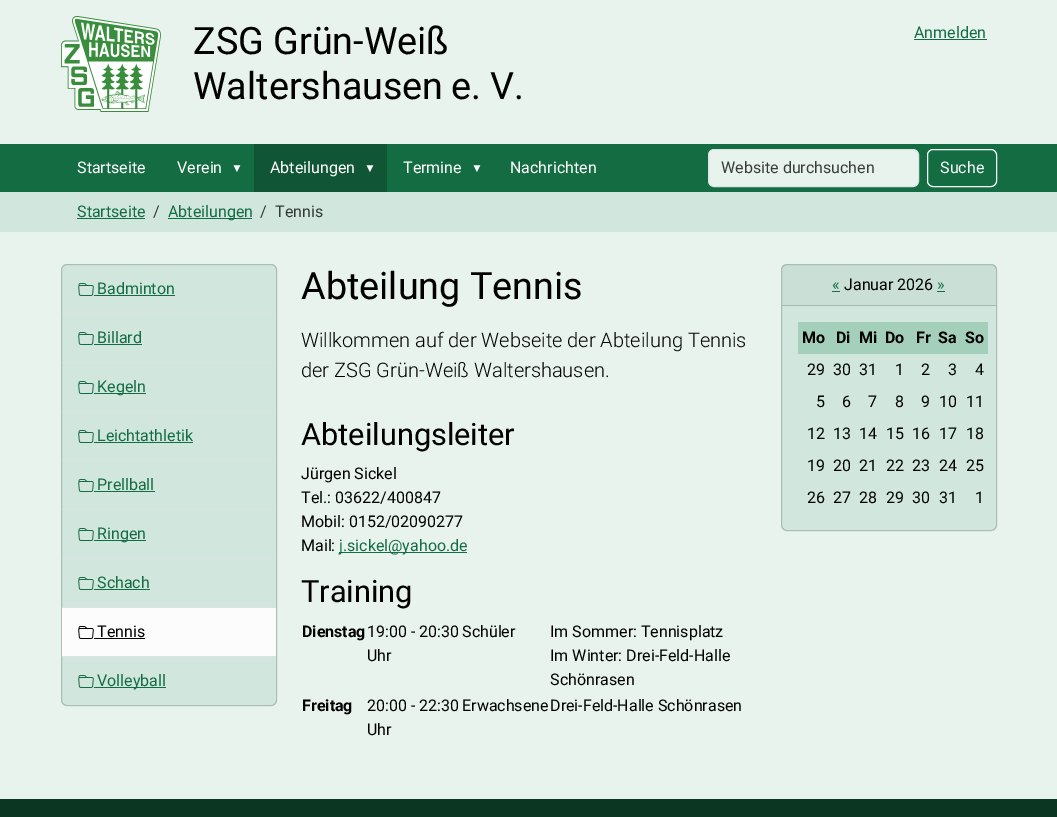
%!PS
<< /PageSize [1057 817] /PageUsesTransparency true >> setpagedevice
/rgb { dup -16 bitshift 255 div exch dup -8 bitshift 255 and 255 div exch 255 and 255 div setrgbcolor } def
/font { [ exch dup neg 0 0 3 -1 roll 0 0 ] selectfont } def
/text { moveto show } def
/alpha { dup .setfillconstantalpha .setstrokeconstantalpha } def
/roundrect { 5 dict begin { /r /h /w /y /x } { exch def } forall
  x r add y moveto x w add y 2 copy h add r arct x w add y h add x 1 index r arct
  x y h add x y r arct x y 2 copy exch w add exch r arct closepath end } def
/picture { 5 dict begin { /h /w /y /x /name } { exch def } forall
  gsave x y translate w h scale
  w h 8 [w 0 0 h 0 0] name (r) file false 3 colorimage grestore end } def
0 .pushpdf14devicefilter
0 817 translate 1 -1 scale
4 setmiterlimit
/s1 { /Roboto-Regular 37.75 font 16#000000 rgb } def
/s2 { /Roboto-Regular 16 font 16#146C43 rgb } def
/s3 { /Roboto-Regular 16 font 16#FFFFFF rgb } def
/s4 { /LiberationSans-Regular 12 font 16#FFFFFF rgb } def
/s5 { /Roboto-Regular 16 font 16#3A3D3C rgb } def
/s6 { /Roboto-Regular 16 font 16#F8F9FA rgb } def
/s7 { /Roboto-Regular 16 font 16#343A37 rgb } def
/s8 { /Roboto-Regular 16 font 16#000000 rgb } def
/s9 { /Roboto-Light 20 font 16#000000 rgb } def
/s10 { /Roboto-Regular 30.75 font 16#000000 rgb } def
/s11 { /Roboto-Bold 16 font 16#000000 rgb } def
16#E8F3EE rgb
0 0 1057 817 rectfill
(pic1.raw) 61 16 100 96 picture
s1
(ZSG Grün-Weiß) 193 54 text
193 99 moveto -2 0 32 (Waltershausen e.) widthshow
(V.) 490 99 text
s2
(Anmelden) 914 38 text
914 39 73 1 rectfill
0 144 1057 48 rectfill
s3
(Startseite) 77 173 text
(Verein) 177 173 text
s4
(▼) 231 172 text
16#105636 rgb
254 144 133 48 rectfill
s3
(Abteilungen) 270 173 text
s4
(▼) 364 172 text
s3
(Termine) 403 173 text
s4
(▼) 471 172 text
s3
(Nachrichten) 510 173 text
16#E8F3EE rgb
708.5 149.5 210 37 5.5 roundrect gsave fill grestore
16#DEE2E6 rgb
stroke
s5
(Website durchsuchen) 721 173 text
16#F8F9FA rgb
927.5 149.5 69 37 5.5 roundrect stroke
(Suche) 940 173 text
16#D1E7DD rgb
0 192 1057 40 rectfill
s2
(Startseite) 77 217 text
77 218 68 1 rectfill
s7
(/) 153 217 text
16#146C43 rgb
168 218 84 1 rectfill
(Abteilungen) 168 217 text
s7
(/) 260 217 text
(Tennis) 275 217 text
16#D1E7DD rgb
61 264 216 442 6 roundrect fill
0.18 alpha
16#000000 rgb
61.5 264.5 215 441 5.5 roundrect stroke
1 alpha
(pic2.raw) 78 283 16 13 picture
s2
(Badminton) 97 294 text
94 295 81 1 rectfill
16#DEE2E6 rgb
62 313 214 1 rectfill
(pic2.raw) 78 332 16 13 picture
s2
(Billard) 97 343 text
94 344 48 1 rectfill
16#DEE2E6 rgb
62 362 214 1 rectfill
(pic2.raw) 78 381 16 13 picture
16#146C43 rgb
94 393 52 1 rectfill
(Kegeln) 97 392 text
16#DEE2E6 rgb
62 411 214 1 rectfill
(pic2.raw) 78 430 16 13 picture
s2
(Leichtathletik) 97 441 text
94 442 99 1 rectfill
16#DEE2E6 rgb
62 460 214 1 rectfill
(pic2.raw) 78 479 16 13 picture
s2
(Prellball) 97 490 text
94 491 61 1 rectfill
16#DEE2E6 rgb
62 509 214 1 rectfill
(pic2.raw) 78 528 16 13 picture
16#146C43 rgb
94 540 52 1 rectfill
(Ringen) 97 539 text
16#DEE2E6 rgb
62 558 214 1 rectfill
(pic2.raw) 78 577 16 13 picture
s2
(Schach) 97 588 text
94 589 56 1 rectfill
16#DEE2E6 rgb
62 607 214 1 rectfill
16#FCFCFD rgb
62 608 214 48 rectfill
(pic3.raw) 78 626 16 13 picture
s8
(Tennis) 97 637 text
94 638 51 1 rectfill
16#DEE2E6 rgb
62 656 214 1 rectfill
(pic2.raw) 78 675 16 13 picture
16#146C43 rgb
94 687 72 1 rectfill
(Volleyball) 97 686 text
s1
(Abteilung Tennis) 301 299 text
s9
(Willkommen auf der Webseite der Abteilung Tennis) 301 347 text
(der ZSG Grün-Weiß Waltershausen.) 301 377 text
s10
(Abteilungsleiter) 301 445 text
s8
(Jürgen Sickel) 301 479 text
(Tel.: 03622/400847) 301 503 text
(Mobil: 0152/02090277) 301 527 text
(Mail:) 301 551 text
16#146C43 rgb
339 552 128 1 rectfill
(j.sickel@yahoo.de) 339 551 text
s10
(Training) 301 602 text
s11
(Dienstag) 302 637 text
s8
(19:00 - 20:30) 367 637 text
(Uhr) 367 661 text
(Schüler) 462 637 text
(Im Sommer: Tennisplatz) 550 637 text
(Im Winter: Drei-Feld-Halle) 550 661 text
(Schönrasen) 550 685 text
s11
(Freitag) 302 711 text
s8
(20:00 - 22:30) 367 711 text
(Uhr) 367 735 text
(Erwachsene) 462 711 text
(Drei-Feld-Halle Schönrasen) 550 711 text
16#D1E7DD rgb
781 264 216 267 6 roundrect fill
0.18 alpha
16#000000 rgb
781.5 264.5 215 266 5.5 roundrect stroke
0.03 alpha
782 265 214 40 rectfill
1 alpha
16#A7B9B1 rgb
782 305 214 1 rectfill
s2
(«) 832 290 text
832 291 8 1 rectfill
s8
(Januar 2026) 844 290 text
s2
(») 937 290 text
937 291 8 1 rectfill
16#A3CFBB rgb
798 322 190 32 rectfill
s11
(Mo) 802 343 text
(Di) 836 343 text
(Mi) 859 343 text
(Do) 885 343 text
(Fr) 916 343 text
(Sa) 938 343 text
(So) 965 343 text
s8
(29) 807 375 text
(30) 833 375 text
(31) 859 375 text
(1) 895 375 text
(2) 921 375 text
(3) 948 375 text
(4) 975 375 text
(5) 816 407 text
(6) 842 407 text
(7) 868 407 text
(8) 895 407 text
(9) 921 407 text
(10) 939 407 text
(11) 966 407 text
(12) 807 439 text
(13) 833 439 text
(14) 859 439 text
(15) 886 439 text
(16) 912 439 text
(17) 939 439 text
(18) 966 439 text
(19) 807 471 text
(20) 833 471 text
(21) 859 471 text
(22) 886 471 text
(23) 912 471 text
(24) 939 471 text
(25) 966 471 text
(26) 807 503 text
(27) 833 503 text
(28) 859 503 text
(29) 886 503 text
(30) 912 503 text
(31) 939 503 text
(1) 975 503 text
16#0A3622 rgb
0 799 1057 18 rectfill
.poppdf14devicefilter showpage
